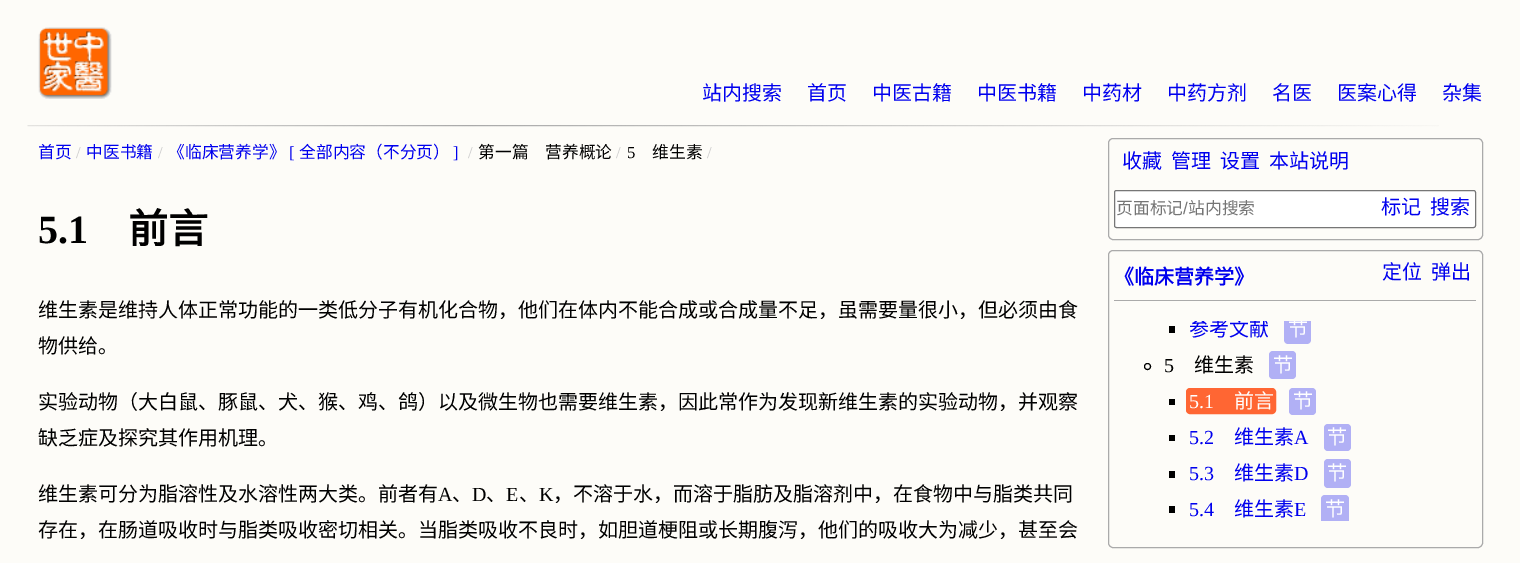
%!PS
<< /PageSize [1520 563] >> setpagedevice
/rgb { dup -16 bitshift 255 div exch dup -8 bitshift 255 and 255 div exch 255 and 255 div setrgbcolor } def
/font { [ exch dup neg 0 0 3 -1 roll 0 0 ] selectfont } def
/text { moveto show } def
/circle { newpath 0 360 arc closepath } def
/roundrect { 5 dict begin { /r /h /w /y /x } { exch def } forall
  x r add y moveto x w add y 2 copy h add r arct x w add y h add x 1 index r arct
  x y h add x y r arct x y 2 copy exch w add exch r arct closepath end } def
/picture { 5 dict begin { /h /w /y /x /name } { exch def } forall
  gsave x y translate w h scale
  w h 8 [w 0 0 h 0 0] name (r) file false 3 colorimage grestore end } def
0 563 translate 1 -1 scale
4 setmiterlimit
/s1 { /NotoSansCJKSC-Regular 20 font 16#0000EE rgb } def
/s2 { /NotoSansCJKSC-Regular 16.75 font 16#0000EE rgb } def
/s3 { /LiberationSerif-Regular 16.75 font 16#CCCCCC rgb } def
/s4 { /LiberationSerif-Regular 16.75 font 16#0000EE rgb } def
/s5 { /NotoSansCJKSC-Regular 16.75 font 16#000000 rgb } def
/s6 { /LiberationSerif-Regular 16.75 font 16#000000 rgb } def
/s7 { /LiberationSerif-Bold 40 font 16#000000 rgb } def
/s8 { /NotoSansCJKSC-Bold 40 font 16#000000 rgb } def
/s9 { /NotoSansCJKSC-Regular 20 font 16#000000 rgb } def
/s10 { /LiberationSerif-Regular 20 font 16#000000 rgb } def
/s11 { /NotoSansCJKSC-Regular 16.75 font 16#757575 rgb } def
/s12 { /LiberationSans-Regular 16.75 font 16#757575 rgb } def
/s13 { /NotoSansCJKSC-Bold 20 font 16#0000EE rgb } def
/s14 { /NotoSansCJKSC-Regular 20 font 16#FFFFFF rgb } def
/s15 { /LiberationSerif-Regular 20 font 16#FFFFFF rgb } def
/s16 { /LiberationSerif-Regular 20 font 16#0000EE rgb } def
16#FDFCF8 rgb
0 0 1520 563 rectfill
(pic1.raw) 27 125 1412 2 picture
(pic2.raw) 38 27 74 72 picture
s1
(站内搜索) 702 100 text
(首页) 807 100 text
(中医古籍) 872 100 text
(中医书籍) 977 100 text
(中药材) 1082 100 text
(中药方剂) 1167 100 text
(名医) 1272 100 text
(医案心得) 1337 100 text
(杂集) 1442 100 text
s2
(首页) 38 158 text
s3
(/) 76 158 text
s2
(中医书籍) 86 158 text
s3
(/) 158 158 text
s2
(《临床营养学》) 168 158 text
s4
([) 289 158 text
s2
(全部内容（不分页）) 299 158 text
s4
(]) 453 158 text
s3
(/) 468 158 text
s5
(第一篇　营养概论) 478 158 text
s3
(/) 616 158 text
s6
(5) 627 158 text
s5
(维生素) 652 158 text
s3
(/) 707 158 text
s7
(5.1) 38 243 text
s8
(前言) 128 243 text
s9
(维生素是维持人体正常功能的一类低分子有机化合物，他们在体内不能合成或合成量不足，虽需要量很小，但必须由食) 38 317 text
(物供给。) 38 353 text
(实验动物（大白鼠、豚鼠、犬、猴、鸡、鸽）以及微生物也需要维生素，因此常作为发现新维生素的实验动物，并观察) 38 409 text
(缺乏症及探究其作用机理。) 38 445 text
(维生素可分为脂溶性及水溶性两大类。前者有) 38 501 text
s10
(A) 438 501 text
s9
(、) 452 501 text
s10
(D) 472 501 text
s9
(、) 486 501 text
s10
(E) 506 501 text
s9
(、) 519 501 text
s10
(K) 539 501 text
s9
(，不溶于水，而溶于脂肪及脂溶剂中，在食物中与脂类共同) 553 501 text
(存在，在肠道吸收时与脂类吸收密切相关。当脂类吸收不良时，如胆道梗阻或长期腹泻，他们的吸收大为减少，甚至会) 38 537 text
16#AAAAAA rgb
1108.5 138.5 374 101 4.5 roundrect stroke
s1
(收藏) 1122 168 text
(管理) 1171 168 text
(设置) 1220 168 text
(本站说明) 1269 168 text
16#FFFFFF rgb
1114.5 190.5 361 37 2 roundrect gsave fill grestore
16#767676 rgb
stroke
s11
(页面标记) 1116 214 text
s12
(/) 1183 214 text
s11
(站内搜索) 1188 214 text
s1
(标记) 1381 214 text
(搜索) 1430 214 text
16#AAAAAA rgb
1108.5 250.5 374 297 4.5 roundrect stroke
1114 300 362 1 rectfill
s13
(《临床营养学》) 1114 284 text
s1
(定位) 1382 279 text
(弹出) 1431 279 text
16#000000 rgb
1169 326 6 7 rectfill
gsave
1114 321 362 200 rectclip
s1
(参考文献) 1189 336 text
grestore
16#B1B0F5 rgb
1284 321 moveto 1311 321 lineto 1311 340 lineto 1311 342 1309 344 1307 344 curveto 1288 344 lineto 1286 344 1284 342 1284 340 curveto closepath fill
gsave
1114 321 362 200 rectclip
s14
(节) 1288 336 text
grestore
16#000000 rgb
1147.5 366.5 3 circle stroke
s10
(5) 1164 372 text
s9
(维生素) 1194 372 text
16#B1B0F5 rgb
1269 351 27 28 4 roundrect fill
s14
(节) 1273 372 text
16#000000 rgb
1169 399 6 6 rectfill
16#FF6633 rgb
3 setlinewidth
1187.5 389.5 87 23 2.5 roundrect stroke
1189 390 85 21 1 roundrect fill
s15
(5.1) 1189 408 text
s14
(前言) 1234 408 text
16#B1B0F5 rgb
1289 388 27 27 4 roundrect fill
s14
(节) 1293 408 text
16#000000 rgb
1169 435 6 6 rectfill
s16
(5.2) 1189 444 text
s1
(维生素) 1234 444 text
s16
(A) 1294 444 text
16#B1B0F5 rgb
1324 424 27 27 4 roundrect fill
s14
(节) 1327 444 text
16#000000 rgb
1169 471 6 7 rectfill
s16
(5.3) 1189 480 text
s1
(维生素) 1234 480 text
s16
(D) 1294 480 text
16#B1B0F5 rgb
1324 459 27 29 4 roundrect fill
s14
(节) 1327 480 text
16#000000 rgb
1169 506 6 7 rectfill
s16
(5.4) 1189 516 text
s1
(维生素) 1234 516 text
s16
(E) 1294 516 text
gsave
1114 321 362 200 rectclip
16#B1B0F5 rgb
1321 495 28 29 4 roundrect fill
grestore
s14
(节) 1325 516 text
showpage
